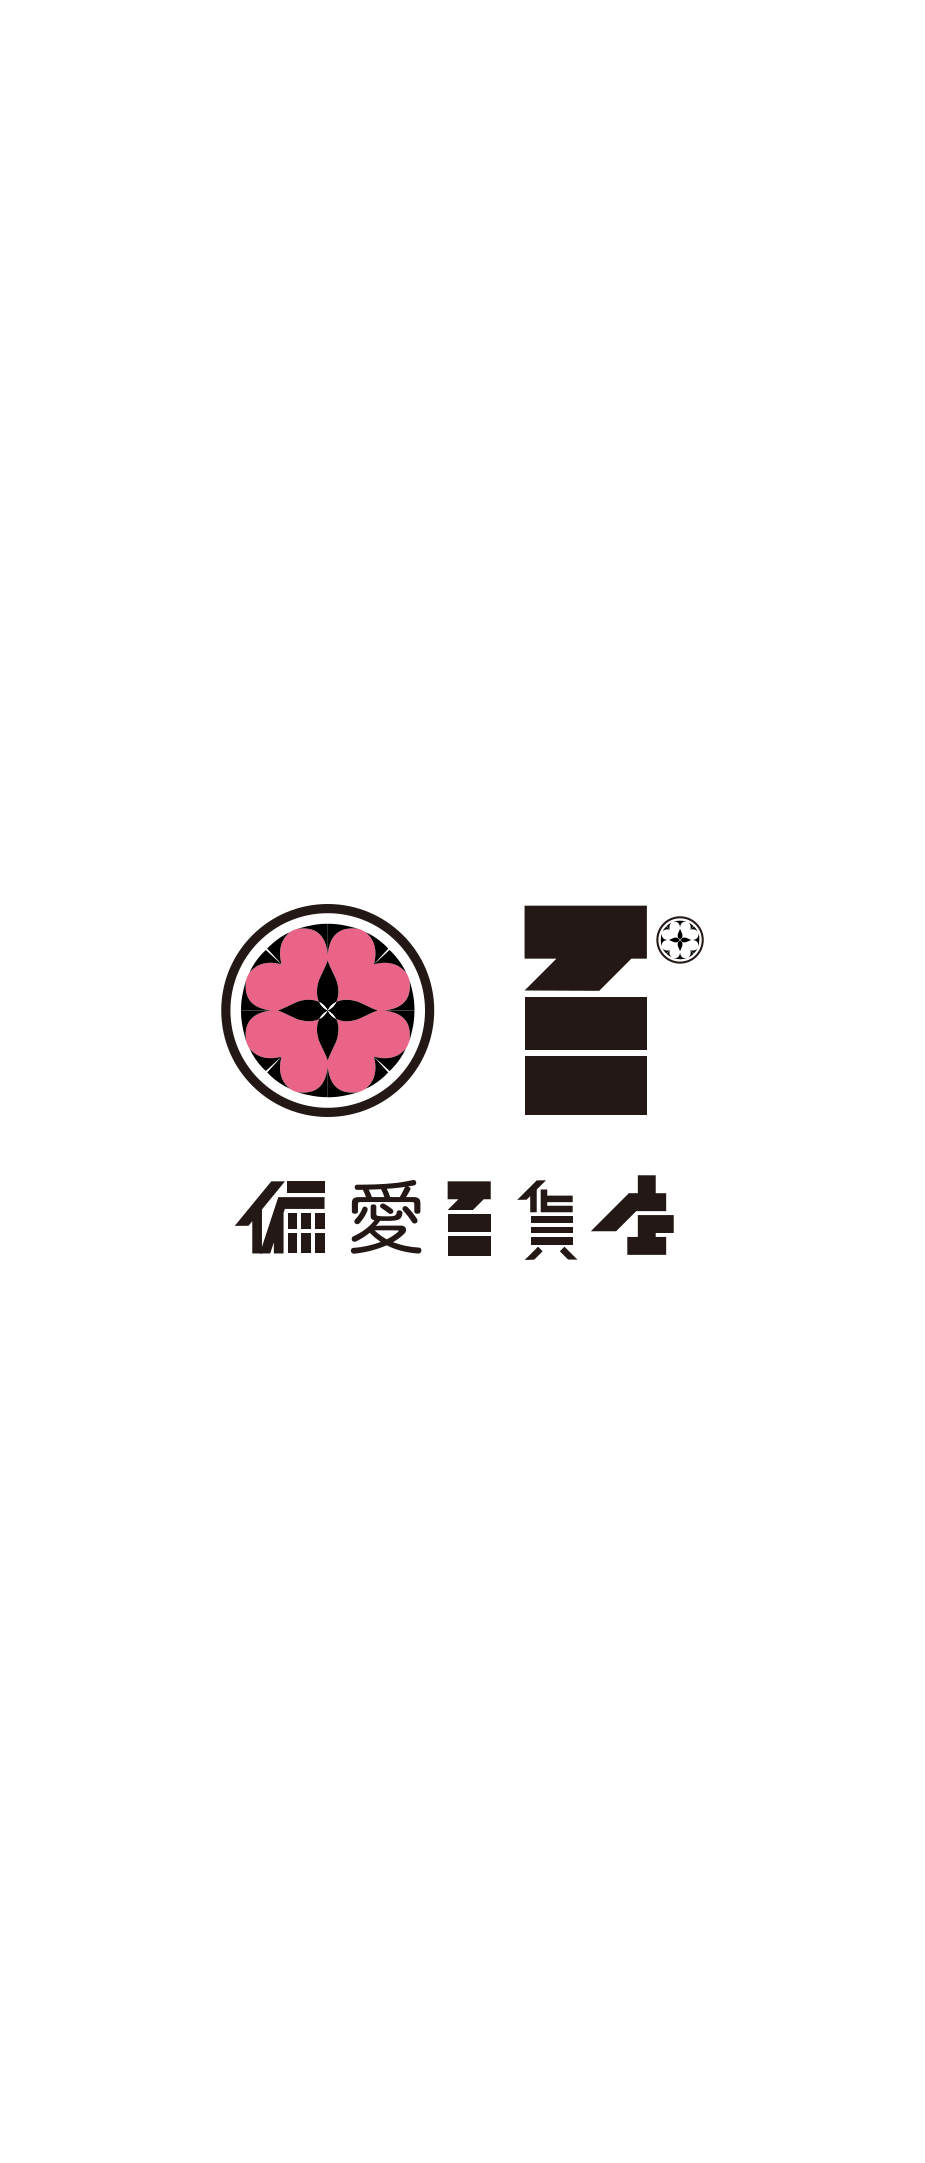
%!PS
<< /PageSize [925 2163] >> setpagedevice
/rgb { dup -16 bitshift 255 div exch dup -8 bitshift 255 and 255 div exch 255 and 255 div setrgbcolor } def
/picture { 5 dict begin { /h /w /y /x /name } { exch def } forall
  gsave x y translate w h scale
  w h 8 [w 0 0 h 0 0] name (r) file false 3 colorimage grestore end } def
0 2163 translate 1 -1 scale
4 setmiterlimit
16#FFFFFF rgb
0 0 925 2163 rectfill
(pic1.raw) 221 904 483 356 picture
showpage
